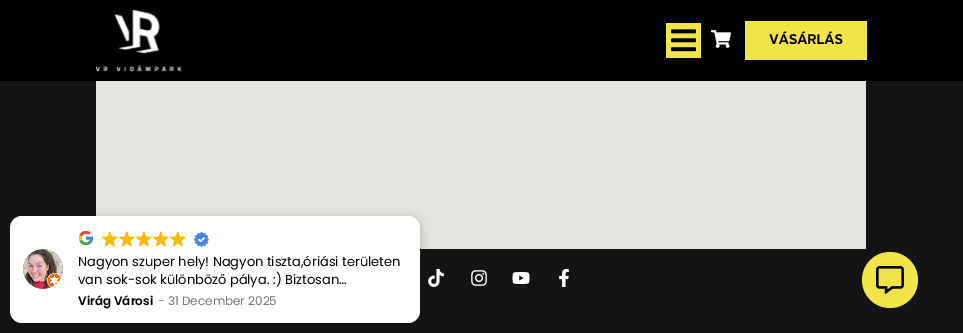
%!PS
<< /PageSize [963 333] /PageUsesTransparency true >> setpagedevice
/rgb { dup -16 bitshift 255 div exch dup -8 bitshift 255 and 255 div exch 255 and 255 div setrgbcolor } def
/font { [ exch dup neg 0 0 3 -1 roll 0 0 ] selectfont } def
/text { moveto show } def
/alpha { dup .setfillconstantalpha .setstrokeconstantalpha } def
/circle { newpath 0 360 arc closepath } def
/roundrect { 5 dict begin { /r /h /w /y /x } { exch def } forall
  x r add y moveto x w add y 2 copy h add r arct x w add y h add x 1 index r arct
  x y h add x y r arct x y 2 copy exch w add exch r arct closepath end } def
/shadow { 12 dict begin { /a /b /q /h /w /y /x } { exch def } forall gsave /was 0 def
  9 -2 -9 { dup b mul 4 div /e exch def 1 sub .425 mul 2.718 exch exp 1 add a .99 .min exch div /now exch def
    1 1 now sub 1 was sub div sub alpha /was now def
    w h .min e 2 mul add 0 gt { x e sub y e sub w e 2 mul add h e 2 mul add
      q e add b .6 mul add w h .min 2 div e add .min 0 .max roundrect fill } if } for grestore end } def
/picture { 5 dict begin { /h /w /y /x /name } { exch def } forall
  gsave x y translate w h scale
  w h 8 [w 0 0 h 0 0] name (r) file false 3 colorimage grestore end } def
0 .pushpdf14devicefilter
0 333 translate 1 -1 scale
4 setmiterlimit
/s1 { /Poppins-Regular 13 font 16#000000 rgb } def
/s2 { /Poppins-SemiBold 12 font 16#000000 rgb } def
/s3 { /Poppins-Regular 12 font 16#767676 rgb } def
16#141414 rgb
0 0 963 333 rectfill
16#000000 rgb
0 0 963 81 rectfill
(pic1.raw) 96 9 86 63 picture
16#F2E348 rgb
666 23 35 35 rectfill
(pic2.raw) 671 29 25 23 picture
(pic3.raw) 711 30 20 18 picture
745 21 122 39 rectfill
(pic4.raw) 769 31 74 14 picture
16#E5E3DF rgb
96 81 770 168 rectfill
(pic5.raw) 428 269 16 18 picture
(pic6.raw) 471 270 16 16 picture
(pic7.raw) 512 272 18 12 picture
(pic8.raw) 559 269 10 18 picture
16#F2E348 rgb
890 280 28 circle fill
(pic9.raw) 876 266 28 28 picture
16#000000 rgb
11 217 410 107 12 4 0.2 shadow
16#FFFFFF rgb
10 216 410 107 12 roundrect fill
(pic10.raw) 23 249 40 40 picture
(pic11.raw) 78 230 15 16 picture
(pic12.raw) 102 231 16 16 picture
(pic12.raw) 119 231 16 16 picture
(pic12.raw) 136 231 16 16 picture
(pic12.raw) 153 231 16 16 picture
(pic12.raw) 170 231 16 16 picture
(pic13.raw) 194 232 15 15 picture
s1
(Nagyon szuper hely! Nagyon tiszta,óriási területen) 78 266 text
(van sok-sok különböző pálya. :\) Biztosan…) 78 284 text
s2
(Virág Városi) 78 305 text
s3
(- 31 December 2025) 158 305 text
.poppdf14devicefilter showpage
